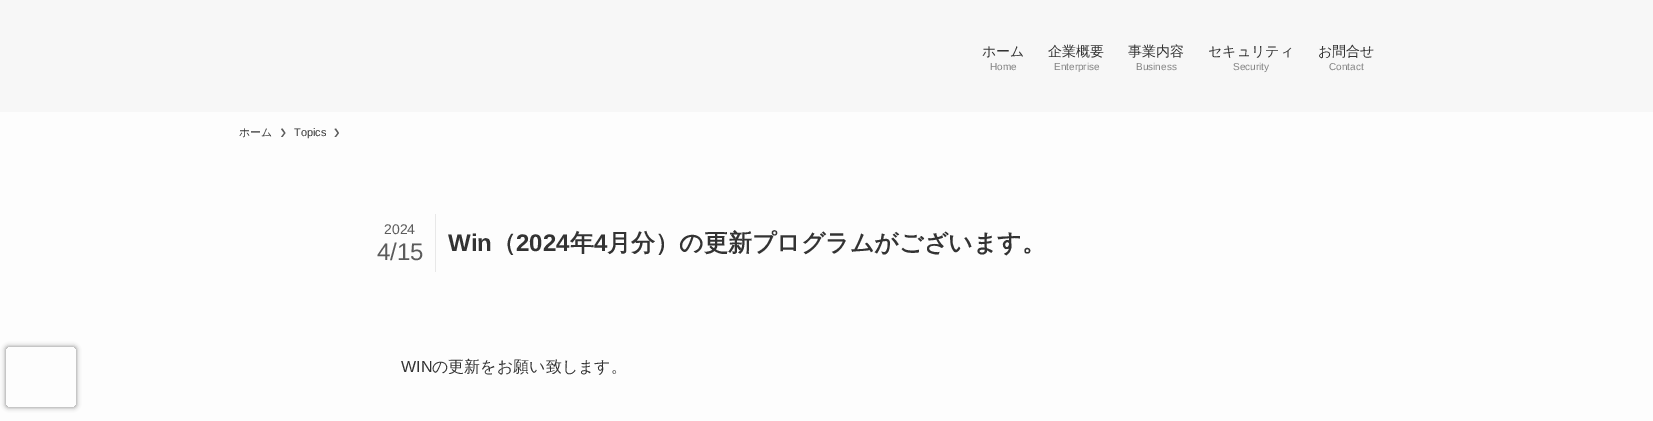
%!PS
<< /PageSize [1653 421] /PageUsesTransparency true >> setpagedevice
/rgb { dup -16 bitshift 255 div exch dup -8 bitshift 255 and 255 div exch 255 and 255 div setrgbcolor } def
/font { [ exch dup neg 0 0 3 -1 roll 0 0 ] selectfont } def
/text { moveto show } def
/alpha { dup .setfillconstantalpha .setstrokeconstantalpha } def
/roundrect { 5 dict begin { /r /h /w /y /x } { exch def } forall
  x r add y moveto x w add y 2 copy h add r arct x w add y h add x 1 index r arct
  x y h add x y r arct x y 2 copy exch w add exch r arct closepath end } def
/shadow { 12 dict begin { /a /b /q /h /w /y /x } { exch def } forall gsave /was 0 def
  9 -2 -9 { dup b mul 4 div /e exch def 1 sub .425 mul 2.718 exch exp 1 add a .99 .min exch div /now exch def
    1 1 now sub 1 was sub div sub alpha /was now def
    w h .min e 2 mul add 0 gt { x e sub y e sub w e 2 mul add h e 2 mul add
      q e add b .6 mul add w h .min 2 div e add .min 0 .max roundrect fill } if } for grestore end } def
0 .pushpdf14devicefilter
0 421 translate 1 -1 scale
4 setmiterlimit
/s1 { /WenQuanYiZenHei-Medium 14 font 16#333333 rgb } def
/s2 { /LiberationSans-Regular 10 font 16#818181 rgb } def
/s3 { /WenQuanYiZenHei-Medium 11 font 16#333333 rgb } def
/s4 { /LiberationSans-Regular 11 font 16#333333 rgb } def
/s5 { /LiberationSans-Regular 14 font 16#5B5B5B rgb } def
/s6 { /LiberationSans-Regular 24 font 16#5B5B5B rgb } def
/s7 { /LiberationSans-Bold 24 font 16#333333 rgb } def
/s8 { /WenQuanYiZenHei-Bold 24 font 16#333333 rgb } def
/s9 { /LiberationSans-Regular 16 font 16#333333 rgb } def
/s10 { /WenQuanYiZenHei-Medium 16 font 16#333333 rgb } def
16#FDFDFD rgb
0 0 1653 421 rectfill
gsave
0 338 moveto 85 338 lineto 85 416 lineto 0 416 lineto closepath 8 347 moveto 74 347 lineto 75 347 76 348 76 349 curveto 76 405 lineto 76 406 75 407 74 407 curveto 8 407 lineto 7 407 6 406 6 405 curveto 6 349 lineto 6 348 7 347 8 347 curveto closepath eoclip newpath
16#808080 rgb
6 347 70 60 2 2.5 1 shadow
grestore
16#F7F7F7 rgb
0 0 1653 112 rectfill
s1
(ホーム) 982 56 text
s2
(Home) 990 70 text
s1
(企業概要) 1048 56 text
s2
(Enterprise) 1054 70 text
s1
(事業内容) 1128 56 text
s2
(Business) 1136 70 text
s1
(セキュリティ) 1208 56 text
s2
(Security) 1233 70 text
s1
(お問合せ) 1318 56 text
s2
(Contact) 1329 70 text
s3
(ホーム) 239 136 text
16#5B5B5B rgb
282.5 128.5 moveto 281 129 lineto 284 133 lineto 281 137 lineto 282.5 137 lineto 285.5 133 lineto closepath fill
s4
(Topics) 294 136 text
16#5B5B5B rgb
336 128.5 moveto 334.5 129 lineto 337.5 133 lineto 334.5 137 lineto 336 137 lineto 339 133 lineto closepath fill
16#E8E8E8 rgb
435 214 1 58 rectfill
s5
(2024) 384 234 text
s6
(4/15) 377 260 text
s7
(Win) 448 251 text
s8
(（) 492 251 text
s7
(2024) 516 251 text
s8
(年) 570 251 text
s7
(4) 594 251 text
s8
(月分）の更新プログラムがございます。) 607 251 text
s9
(WIN) 401 372 text
s10
(の更新をお願い致します。) 432 372 text
.poppdf14devicefilter showpage
